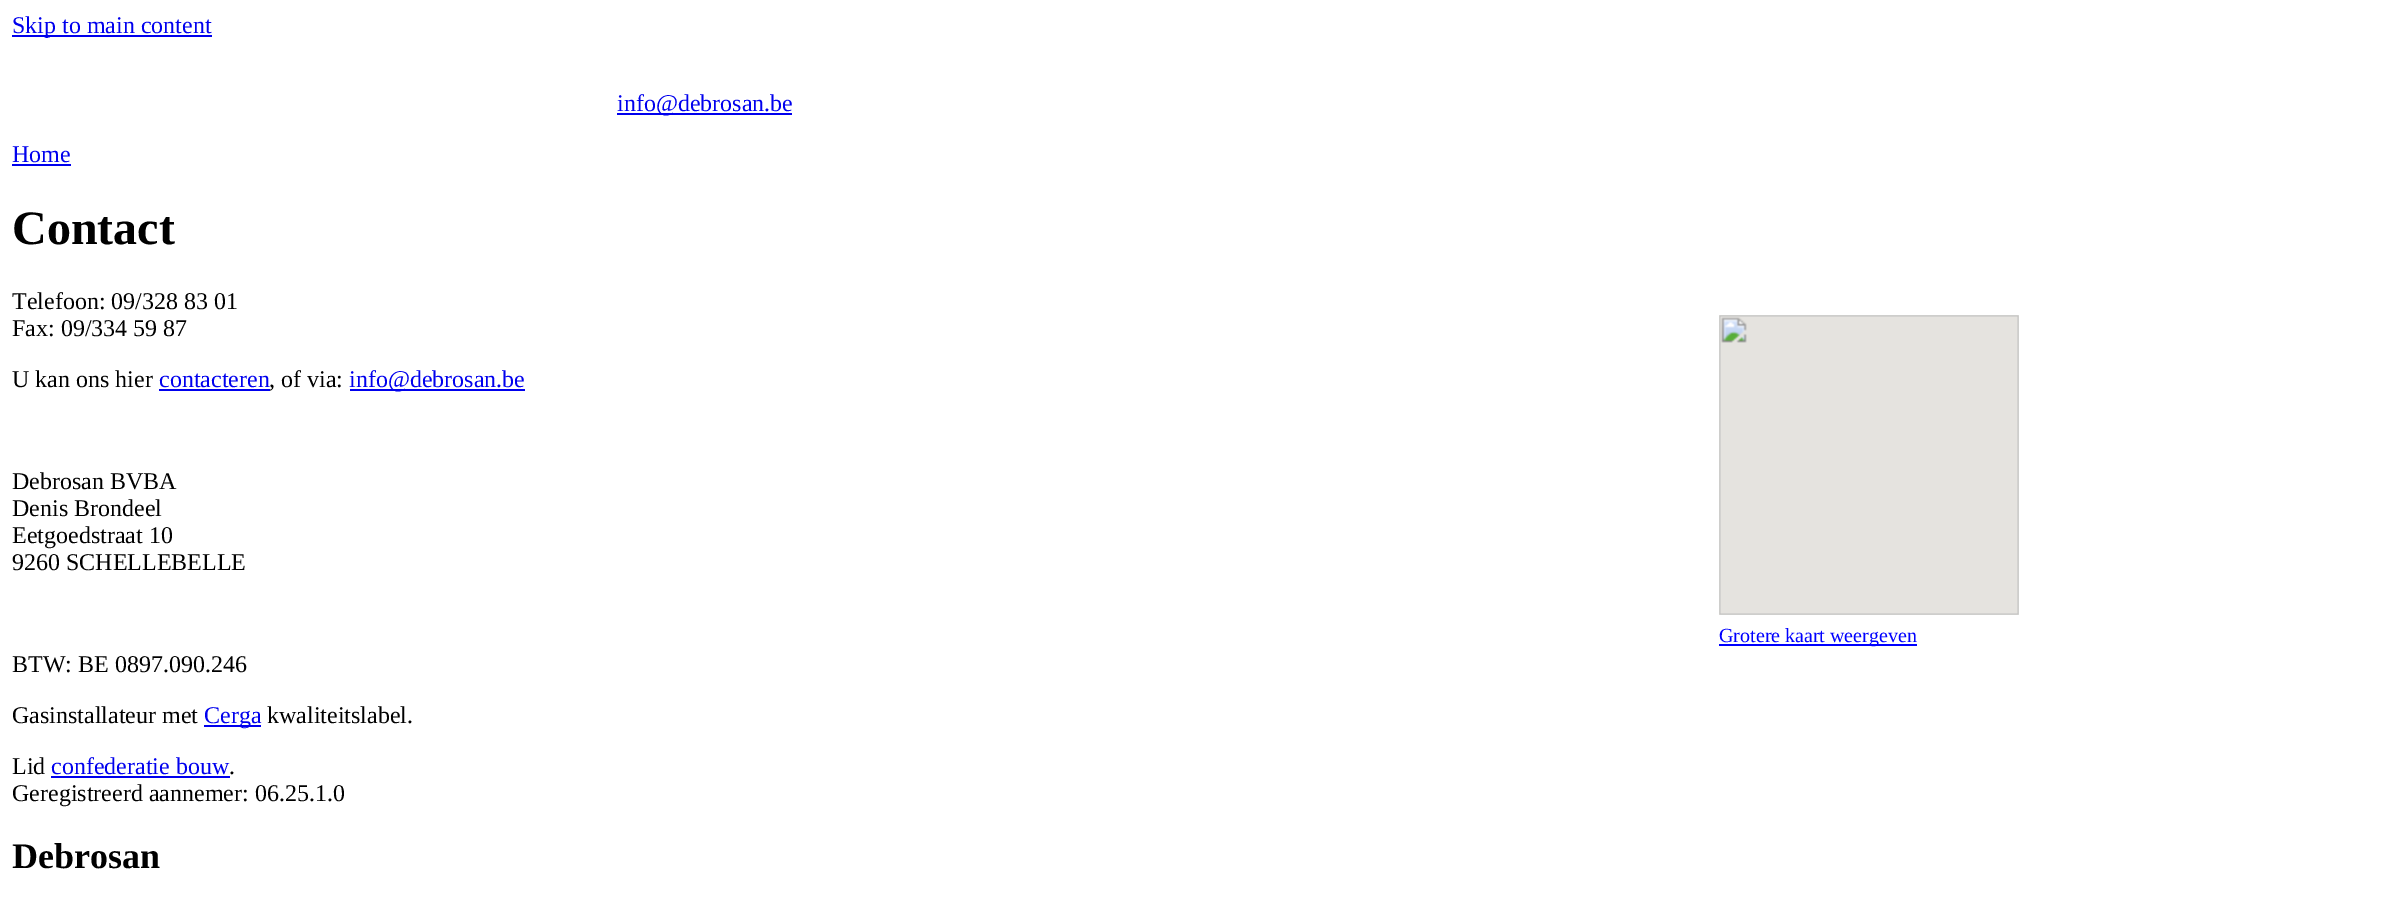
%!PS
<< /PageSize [2384 910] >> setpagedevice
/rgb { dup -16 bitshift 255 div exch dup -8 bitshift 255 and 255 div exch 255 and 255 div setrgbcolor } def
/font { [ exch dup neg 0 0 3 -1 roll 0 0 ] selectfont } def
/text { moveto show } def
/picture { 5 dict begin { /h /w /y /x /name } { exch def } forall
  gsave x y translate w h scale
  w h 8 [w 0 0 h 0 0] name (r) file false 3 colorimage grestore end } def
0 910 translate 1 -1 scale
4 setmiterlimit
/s1 { /LiberationSerif-Regular 24 font 16#0000EE rgb } def
/s2 { /LiberationSerif-Bold 48 font 16#000000 rgb } def
/s3 { /LiberationSerif-Regular 24 font 16#000000 rgb } def
/s4 { /LiberationSerif-Regular 20 font 16#0000FF rgb } def
/s5 { /LiberationSerif-Bold 36 font 16#000000 rgb } def
16#FFFFFF rgb
0 0 2384 910 rectfill
16#0000EE rgb
12 35 200 2 rectfill
s1
(Skip to main content) 12 33 text
617 113 175 2 rectfill
(info@debrosan.be) 617 111 text
(Home) 12 162 text
12 164 59 2 rectfill
s2
(Contact) 12 244 text
s3
(Telefoon: 09/328 83 01) 12 309 text
(Fax: 09/334 59 87) 12 336 text
(U kan ons hier) 12 387 text
s1
(contacteren) 159 387 text
159 389 111 2 rectfill
s3
(, of via:) 269 387 text
16#0000EE rgb
350 389 175 2 rectfill
(info@debrosan.be) 349 387 text
s3
(Debrosan BVBA) 12 489 text
(Denis Brondeel) 12 516 text
(Eetgoedstraat 10) 12 543 text
(9260 SCHELLEBELLE) 12 570 text
(pic1.raw) 1719 315 300 300 picture
16#0000FF rgb
1719 644 198 2 rectfill
s4
(Grotere kaart weergeven) 1719 642 text
s3
(BTW: BE 0897.090.246) 12 672 text
(Gasinstallateur met) 12 723 text
16#0000EE rgb
204 725 57 2 rectfill
(Cerga) 204 723 text
s3
(kwaliteitslabel.) 267 723 text
(Lid) 12 774 text
s1
(confederatie bouw) 51 774 text
51 776 179 2 rectfill
s3
(.) 229 774 text
(Geregistreerd aannemer: 06.25.1.0) 12 801 text
s5
(Debrosan) 12 868 text
showpage
